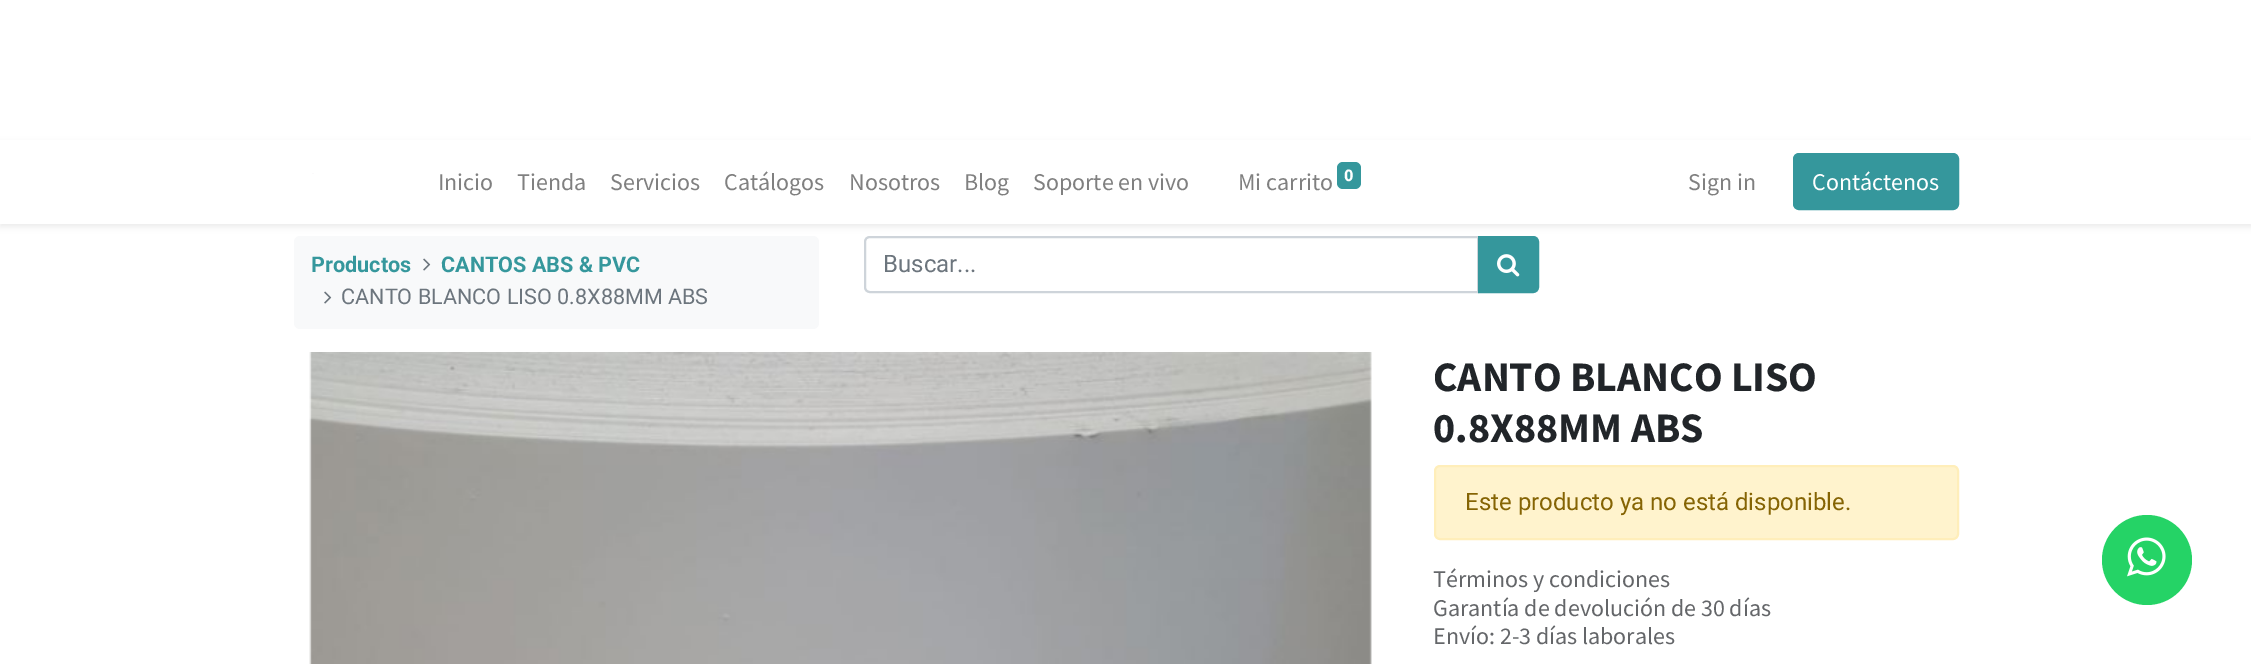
%!PS
<< /PageSize [2251 664] /PageUsesTransparency true >> setpagedevice
/rgb { dup -16 bitshift 255 div exch dup -8 bitshift 255 and 255 div exch 255 and 255 div setrgbcolor } def
/font { [ exch dup neg 0 0 3 -1 roll 0 0 ] selectfont } def
/text { moveto show } def
/alpha { dup .setfillconstantalpha .setstrokeconstantalpha } def
/circle { newpath 0 360 arc closepath } def
/roundrect { 5 dict begin { /r /h /w /y /x } { exch def } forall
  x r add y moveto x w add y 2 copy h add r arct x w add y h add x 1 index r arct
  x y h add x y r arct x y 2 copy exch w add exch r arct closepath end } def
/shadow { 12 dict begin { /a /b /q /h /w /y /x } { exch def } forall gsave /was 0 def
  9 -2 -9 { dup b mul 4 div /e exch def 1 sub .425 mul 2.718 exch exp 1 add a .99 .min exch div /now exch def
    1 1 now sub 1 was sub div sub alpha /was now def
    w h .min e 2 mul add 0 gt { x e sub y e sub w e 2 mul add h e 2 mul add
      q e add b .6 mul add w h .min 2 div e add .min 0 .max roundrect fill } if } for grestore end } def
/picture { 5 dict begin { /h /w /y /x /name } { exch def } forall
  gsave x y translate w h scale
  w h 8 [w 0 0 h 0 0] name (r) file false 3 colorimage grestore end } def
0 .pushpdf14devicefilter
0 664 translate 1 -1 scale
4 setmiterlimit
/s1 { /SourceSansPro-Regular 24 font 16#808080 rgb } def
/s2 { /SourceSansPro-Bold 18 font 16#FFFFFF rgb } def
/s3 { /SourceSansPro-Regular 24 font 16#FFFFFF rgb } def
/s4 { /Roboto-Bold 21.6 font 16#35979C rgb } def
/s5 { /Roboto-Regular 21.6 font 16#6C757D rgb } def
/s6 { /Roboto-Regular 24 font 16#6C757D rgb } def
/s7 { /SourceSansPro-Bold 42 font 16#212529 rgb } def
/s8 { /Roboto-Regular 24 font 16#856404 rgb } def
/s9 { /SourceSansPro-Regular 24 font 16#646669 rgb } def
16#FFFFFF rgb
0 0 2251 664 rectfill
16#F8F9FA rgb
294 236 525 93 6 roundrect fill
16#CED4DA rgb
2 setlinewidth
870 237 moveto 1478 237 lineto 1478 292 lineto 870 292 lineto 867 292 865 290 865 287 curveto 865 242 lineto 865 239 867 237 870 237 curveto closepath stroke
16#35979C rgb
1479 237 moveto 1533 237 lineto 1536 237 1538 239 1538 242 curveto 1538 287 lineto 1538 290 1536 292 1533 292 curveto 1479 292 lineto closepath gsave fill grestore
stroke
16#000000 rgb
0 143 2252 84 0 3 0.07 shadow
16#FFFFFF rgb
0 140 2251 84 rectfill
16#FBFAFB rgb
312 173 2 1 rectfill
s1
(Inicio) 438 190 text
(Tienda) 517 190 text
(Servicios) 610 190 text
(Catálogos) 724 190 text
(Nosotros) 849 190 text
(Blog) 964 190 text
(Soporte en vivo) 1033 190 text
(Mi carrito) 1238 190 text
16#35979C rgb
1337 162 24 27 6 roundrect fill
s2
(0) 1344 181 text
s1
(Sign in) 1688 190 text
16#35979C rgb
1794 154 164 55 5 roundrect gsave fill grestore
stroke
s3
(Contáctenos) 1812 190 text
s4
(Productos) 311 272 text
(pic1.raw) 423 258 8 13 picture
(CANTOS ABS & PVC) 441 272 text
(pic1.raw) 324 291 8 13 picture
s5
(CANTO BLANCO LISO 0.8X88MM ABS) 341 304 text
s6
(Buscar...) 883 272 text
(pic2.raw) 1497 254 23 23 picture
(pic3.raw) 309 352 1063 312 picture
s7
(CANTO BLANCO LISO) 1433 391 text
(0.8X88MM ABS) 1433 442 text
16#FFF3CD rgb
1435 466 523 73 5 roundrect gsave fill grestore
16#FFEEBA rgb
stroke
s8
(Este producto ya no está disponible.) 1465 510 text
s9
(Términos y condiciones) 1433 587 text
(Garantía de devolución de 30 días) 1433 616 text
(Envío: 2-3 días laborales) 1433 644 text
16#25D366 rgb
2147 560 45 circle fill
(pic4.raw) 2127 537 39 40 picture
.poppdf14devicefilter showpage
